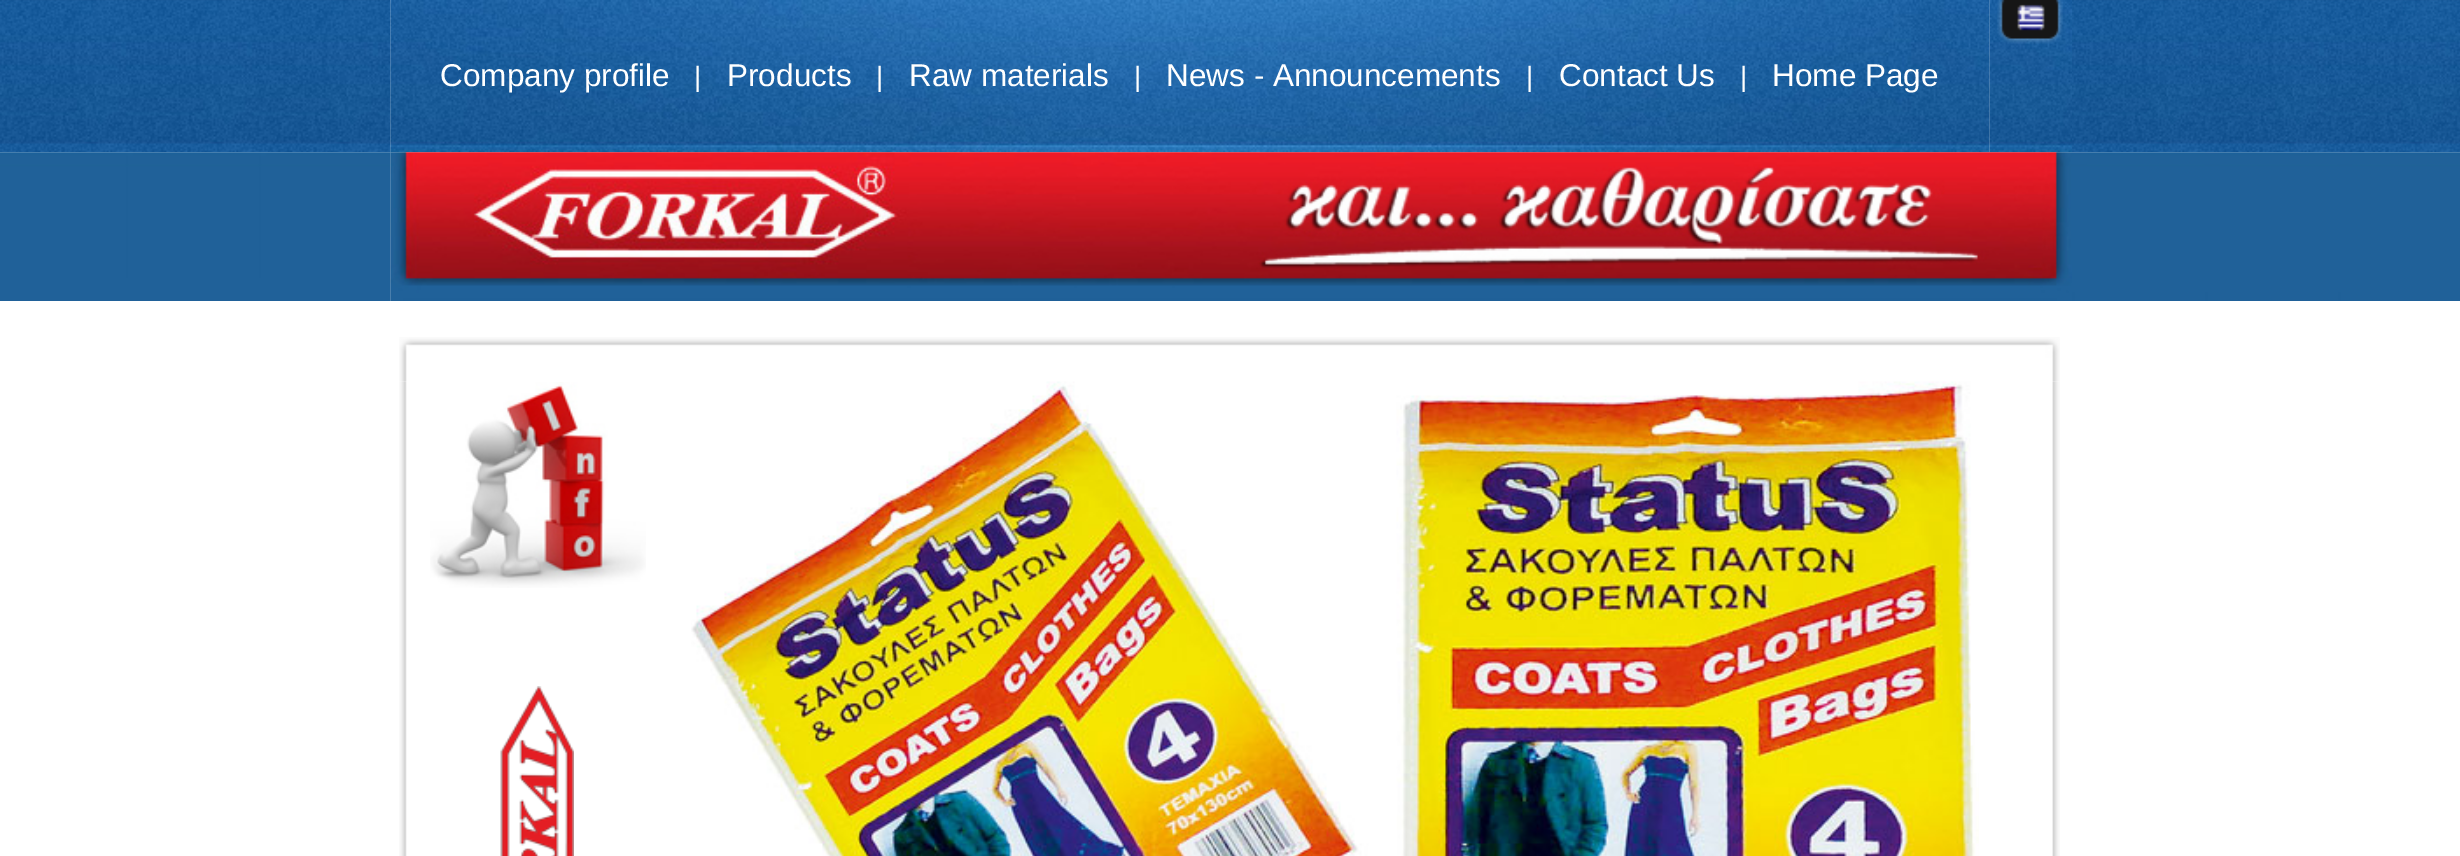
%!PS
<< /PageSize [2460 856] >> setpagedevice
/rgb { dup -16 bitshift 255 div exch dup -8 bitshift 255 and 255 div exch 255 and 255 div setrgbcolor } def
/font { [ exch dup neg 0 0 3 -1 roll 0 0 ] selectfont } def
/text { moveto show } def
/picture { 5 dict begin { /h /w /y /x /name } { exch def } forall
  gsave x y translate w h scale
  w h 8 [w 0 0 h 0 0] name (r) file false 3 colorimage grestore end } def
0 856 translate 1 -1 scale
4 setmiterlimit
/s1 { /LiberationSans-Regular 31.5 font 16#FFFFFF rgb } def
/s2 { /LiberationSans-Regular 28 font 16#FFFFFF rgb } def
16#FFFFFF rgb
0 0 2460 856 rectfill
(pic1.raw) 0 0 391 153 picture
(pic2.raw) 390 0 1600 153 picture
s1
(Company profile) 440 86 text
s2
(|) 694 86 text
s1
(Products) 727 86 text
s2
(|) 876 86 text
s1
(Raw materials) 909 86 text
s2
(|) 1134 86 text
s1
(News - Announcements) 1166 86 text
s2
(|) 1526 86 text
s1
(Contact Us) 1559 86 text
s2
(|) 1740 86 text
s1
(Home Page) 1772 86 text
(pic3.raw) 1989 0 83 153 picture
(pic4.raw) 1997 0 66 44 picture
(pic5.raw) 2072 0 388 153 picture
(pic6.raw) 0 152 391 149 picture
(pic7.raw) 390 152 1682 149 picture
(pic8.raw) 2072 152 388 149 picture
(pic9.raw) 399 337 1661 45 picture
(pic10.raw) 399 381 1661 475 picture
(pic11.raw) 430 382 216 206 picture
(pic12.raw) 500 686 74 170 picture
(pic13.raw) 691 381 1288 475 picture
showpage
